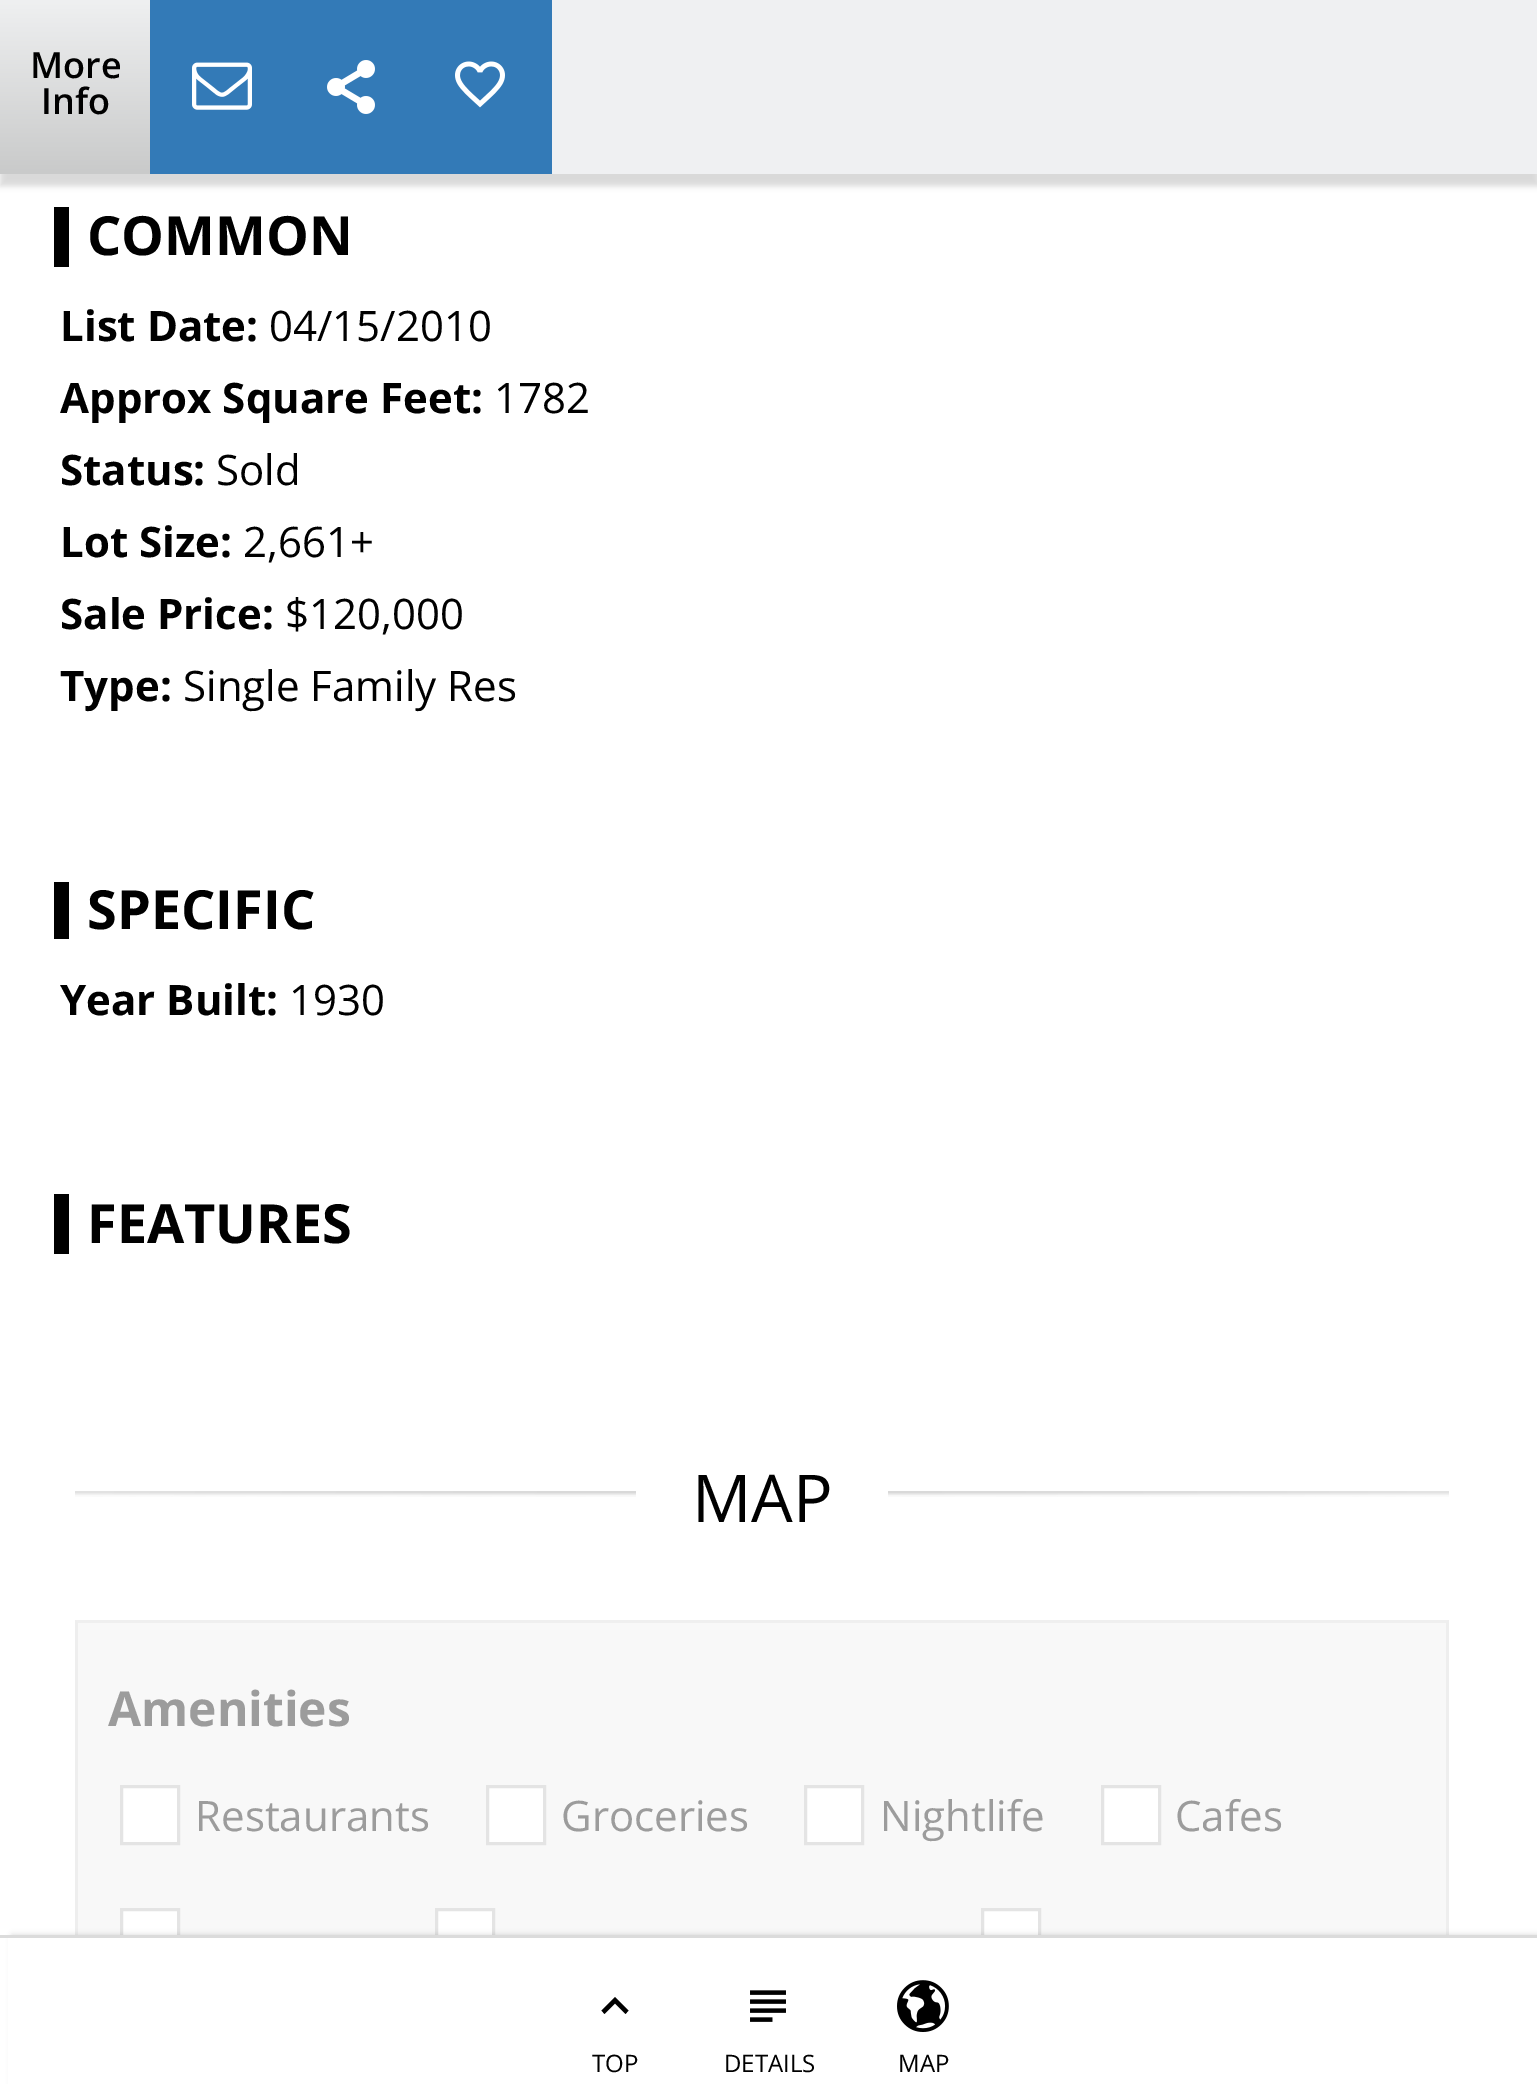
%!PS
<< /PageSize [1537 2084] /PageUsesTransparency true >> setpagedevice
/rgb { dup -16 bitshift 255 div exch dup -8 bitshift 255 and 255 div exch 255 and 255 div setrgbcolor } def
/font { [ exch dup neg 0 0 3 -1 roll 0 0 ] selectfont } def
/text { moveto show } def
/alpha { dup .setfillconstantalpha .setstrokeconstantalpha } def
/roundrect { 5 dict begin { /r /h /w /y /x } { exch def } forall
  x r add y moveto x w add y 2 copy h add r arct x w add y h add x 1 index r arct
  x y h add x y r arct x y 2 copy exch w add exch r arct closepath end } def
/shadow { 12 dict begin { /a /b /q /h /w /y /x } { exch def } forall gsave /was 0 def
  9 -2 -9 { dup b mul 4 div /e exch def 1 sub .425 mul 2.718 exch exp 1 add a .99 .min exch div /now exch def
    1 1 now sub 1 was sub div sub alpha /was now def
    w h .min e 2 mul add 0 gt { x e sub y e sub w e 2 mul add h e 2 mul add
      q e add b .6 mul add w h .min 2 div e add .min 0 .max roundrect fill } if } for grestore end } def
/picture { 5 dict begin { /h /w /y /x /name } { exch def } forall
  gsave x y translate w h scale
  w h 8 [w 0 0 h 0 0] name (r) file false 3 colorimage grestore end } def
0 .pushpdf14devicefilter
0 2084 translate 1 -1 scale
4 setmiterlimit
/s1 { /OpenSans-SemiBold 36 font 16#000000 rgb } def
/s2 { /OpenSans-Bold 54 font 16#000000 rgb } def
/s3 { /OpenSans-Bold 42 font 16#000000 rgb } def
/s4 { /OpenSans-Regular 42 font 16#000000 rgb } def
/s5 { /OpenSans-Regular 66 font 16#000000 rgb } def
/s6 { /OpenSans-Bold 48 font 16#9C9C9C rgb } def
/s7 { /OpenSans-Regular 42 font 16#9C9C9C rgb } def
/s8 { /OpenSans-Regular 24 font 16#000000 rgb } def
16#FFFFFF rgb
0 0 1537 2084 rectfill
16#000000 rgb
0 12 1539 174 0 3 0.15 shadow
16#EFF0F2 rgb
552 0 985 174 rectfill
gsave 0 0 moveto 150 0 lineto 150 174 lineto 0 174 lineto closepath clip newpath
<< /ShadingType 2 /ColorSpace /DeviceRGB /Coords [75 0 75 174] /Extend [true true] /Function << /FunctionType 2 /Domain [0 1] /C0 [0.937 0.941 0.945] /C1 [0.788 0.792 0.792] /N 1 >> >> shfill grestore
s1
(More) 30 78 text
(Info) 41 114 text
16#337AB7 rgb
150 0 402 174 rectfill
(pic1.raw) 192 62 60 48 picture
(pic2.raw) 327 60 48 54 picture
(pic3.raw) 455 61 50 47 picture
16#000000 rgb
54 207 15 60 rectfill
s2
(COMMON) 87 255 text
s3
(List Date:) 60 341 text
s4
(04/15/2010) 269 341 text
s3
(Approx Square Feet:) 60 413 text
s4
(1782) 494 413 text
s3
(Status:) 60 485 text
s4
(Sold) 216 485 text
s3
(Lot Size:) 60 557 text
s4
(2,661+) 243 557 text
s3
(Sale Price:) 60 629 text
s4
($120,000) 285 629 text
s3
(Type:) 60 701 text
s4
(Single Family Res) 183 701 text
54 882 15 57 rectfill
s2
(SPECIFIC) 87 929 text
s3
(Year Built:) 60 1015 text
s4
(1930) 289 1015 text
54 1194 15 60 rectfill
s2
(FEATURES) 87 1243 text
(pic4.raw) 75 1491 1374 6 picture
16#FFFFFF rgb
636 1491 252 6 rectfill
s5
(MAP) 692 1522 text
16#F8F8F8 rgb
75 1620 1374 315 rectfill
16#EFEFEF rgb
75 1620 moveto 1449 1620 lineto 1446 1623 lineto 78 1623 lineto closepath fill
0.3 alpha
16#D7D7D7 rgb
1449 1620 moveto 1449 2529 lineto 1446 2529 lineto 1446 1623 lineto closepath fill
75 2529 moveto 75 1620 lineto 78 1623 lineto 78 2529 lineto closepath fill
1 alpha
s6
(Amenities) 108 1726 text
16#FFFFFF rgb
121.5 1786.5 moveto 178.5 1786.5 lineto 178.5 1843.5 lineto 121.5 1843.5 lineto closepath gsave fill grestore
16#E4E4E4 rgb
3 setlinewidth
stroke
s7
(Restaurants) 195 1831 text
16#FFFFFF rgb
487.5 1786.5 moveto 544.5 1786.5 lineto 544.5 1843.5 lineto 487.5 1843.5 lineto closepath gsave fill grestore
16#E4E4E4 rgb
stroke
s7
(Groceries) 561 1831 text
16#FFFFFF rgb
805.5 1786.5 moveto 862.5 1786.5 lineto 862.5 1843.5 lineto 805.5 1843.5 lineto closepath gsave fill grestore
16#E4E4E4 rgb
stroke
s7
(Nightlife) 880 1831 text
16#FFFFFF rgb
1102.5 1786.5 moveto 1159.5 1786.5 lineto 1159.5 1843.5 lineto 1102.5 1843.5 lineto closepath gsave fill grestore
16#E4E4E4 rgb
stroke
s7
(Cafes) 1175 1831 text
16#FFFFFF rgb
123 1911 54 24 rectfill
16#E4E4E4 rgb
121.5 1909.5 57 57 rectstroke
16#FFFFFF rgb
438 1911 54 24 rectfill
16#E4E4E4 rgb
436.5 1909.5 57 57 rectstroke
16#FFFFFF rgb
984 1911 54 24 rectfill
16#E4E4E4 rgb
982.5 1909.5 57 57 rectstroke
16#000000 rgb
12 1935 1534 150 0 3 0.15 shadow
16#FFFFFF rgb
8 1938 1529 146 rectfill
16#DBDBDB rgb
0 1935 1537 3 rectfill
16#000000 rgb
604.5 2014 moveto 615 2003.5 lineto 625.5 2014 lineto 628.5 2010.5 lineto 615 1997 lineto 601.5 2010.5 lineto closepath fill
s8
(TOP) 592 2072 text
(pic5.raw) 750 1990 36 32 picture
(DETAILS) 724 2072 text
(pic6.raw) 897 1980 52 52 picture
(MAP) 898 2072 text
.poppdf14devicefilter showpage
